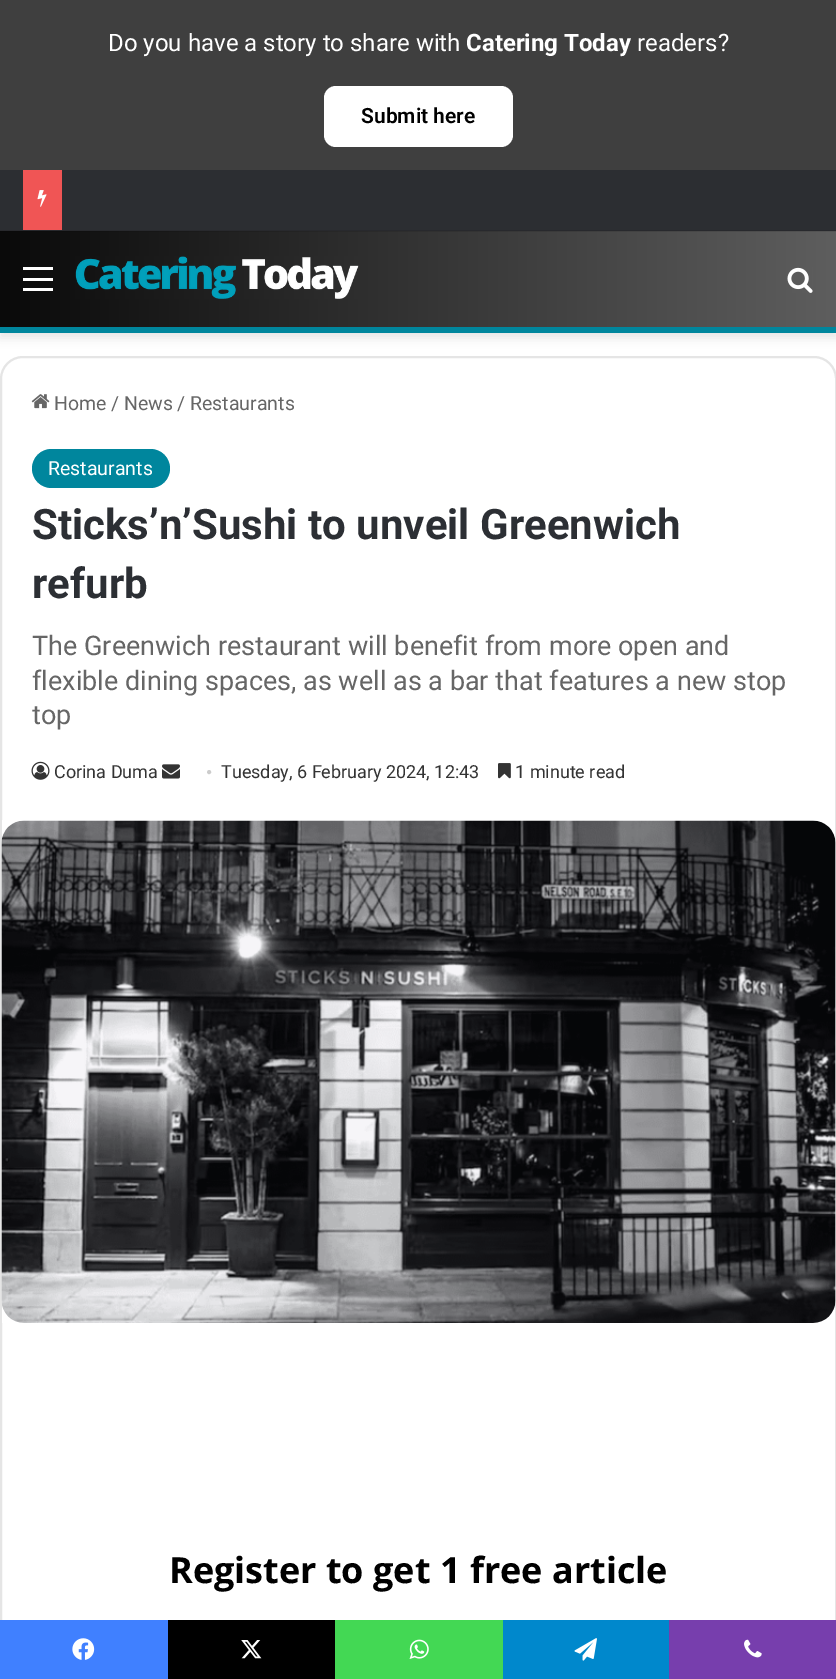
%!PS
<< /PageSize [836 1679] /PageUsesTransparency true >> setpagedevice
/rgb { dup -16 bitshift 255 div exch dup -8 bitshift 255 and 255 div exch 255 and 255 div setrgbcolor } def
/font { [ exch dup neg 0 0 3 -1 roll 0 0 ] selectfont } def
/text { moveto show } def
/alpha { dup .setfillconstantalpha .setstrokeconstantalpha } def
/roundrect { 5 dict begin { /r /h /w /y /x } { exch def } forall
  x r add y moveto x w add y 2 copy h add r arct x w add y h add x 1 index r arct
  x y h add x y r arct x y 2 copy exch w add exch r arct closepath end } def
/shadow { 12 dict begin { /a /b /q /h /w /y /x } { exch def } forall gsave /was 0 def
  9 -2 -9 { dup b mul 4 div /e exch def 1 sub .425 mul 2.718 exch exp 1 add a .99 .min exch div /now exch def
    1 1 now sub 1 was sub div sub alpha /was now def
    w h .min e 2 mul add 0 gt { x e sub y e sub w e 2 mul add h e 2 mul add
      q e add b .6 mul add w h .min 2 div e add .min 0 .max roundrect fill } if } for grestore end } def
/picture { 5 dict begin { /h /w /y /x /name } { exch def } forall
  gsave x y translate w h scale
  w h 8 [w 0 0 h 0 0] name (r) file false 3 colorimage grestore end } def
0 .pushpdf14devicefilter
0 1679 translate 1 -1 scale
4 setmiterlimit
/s1 { /Roboto-Regular 24 font 16#FFFFFF rgb } def
/s2 { /Roboto-Bold 24 font 16#FFFFFF rgb } def
/s3 { /Roboto-SemiBold 21 font 16#000000 rgb } def
/s4 { /Roboto-Regular 19.5 font 16#666666 rgb } def
/s5 { /Roboto-Regular 19.5 font 16#FFFFFF rgb } def
/s6 { /Roboto-Bold 42 font 16#2C2F34 rgb } def
/s7 { /Roboto-Regular 27 font 16#666666 rgb } def
/s8 { /Roboto-Regular 18 font 16#333333 rgb } def
/s9 { /LiberationSerif-Regular 18 font 16#CCCCCC rgb } def
/s10 { /OpenSans-Bold 36 font 16#000000 rgb } def
16#3F3F3F rgb
0 0 836 1679 rectfill
s1
(Do you have a story to share with) 108 51 text
s2
(Catering Today) 466 51 text
s1
(readers?) 637 51 text
324 86 189 61 12 roundrect fill
s3
(Submit here) 361 123 text
16#FFFFFF rgb
0 333 836 1287 rectfill
16#000000 rgb
0 236 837 102 0 5 0.1 shadow
16#2C2E32 rgb
0 170 836 61 rectfill
gsave 0 231 moveto 836 231 lineto 836 327 lineto 0 327 lineto closepath clip newpath
<< /ShadingType 2 /ColorSpace /DeviceRGB /Coords [0 279 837 279] /Extend [true true] /Function << /FunctionType 2 /Domain [0 1] /C0 [0.039 0.039 0.039] /C1 [0.369 0.369 0.369] /N 1 >> >> shfill grestore
0.1 alpha
16#000000 rgb
0 230 836 2 rectfill
1 alpha
16#F05555 rgb
23 170 39 60 rectfill
(pic1.raw) 37 190 10 17 picture
16#00869D rgb
0 327 836 6 rectfill
16#FFFFFF rgb
23 278 30 3 rectfill
23 267 30 3 rectfill
23 288 30 3 rectfill
(pic2.raw) 75 256 284 43 picture
(pic3.raw) 787 267 26 26 picture
16#E5E5E5 rgb
2 setlinewidth
1 357 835 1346 22 roundrect stroke
(pic4.raw) 31 394 19 15 picture
s4
(Home) 54 410 text
(/) 111 410 text
(News) 124 410 text
(/) 177 410 text
(Restaurants) 190 410 text
16#00869D rgb
32 449 138 39 19.5 roundrect fill
s5
(Restaurants) 48 475 text
s6
(Sticks’n’Sushi to unveil Greenwich) 32 539 text
(refurb) 32 598 text
s7
(The Greenwich restaurant will benefit from more open and) 32 655 text
(flexible dining spaces, as well as a bar that features a new stop) 32 690 text
(top) 32 724 text
(pic5.raw) 31 761 19 19 picture
s8
(Corina Duma) 54 778 text
(pic6.raw) 162 764 18 15 picture
s9
(•) 206 778 text
s8
(Tuesday, 6 February 2024, 12:43) 221 778 text
(pic7.raw) 498 763 13 16 picture
(1 minute read) 515 778 text
(pic8.raw) 1 820 835 503 picture
s10
(Register to get 1 free article) 169 1583 text
16#4080FF rgb
0 1620 168 59 rectfill
(pic9.raw) 72 1638 23 22 picture
16#000000 rgb
168 1620 167 59 rectfill
(pic10.raw) 241 1640 21 19 picture
16#43D854 rgb
335 1620 168 59 rectfill
(pic11.raw) 409 1639 20 20 picture
16#0088CC rgb
503 1620 166 59 rectfill
(pic12.raw) 574 1638 23 23 picture
16#773EAD rgb
669 1620 167 59 rectfill
(pic13.raw) 744 1639 18 19 picture
.poppdf14devicefilter showpage
